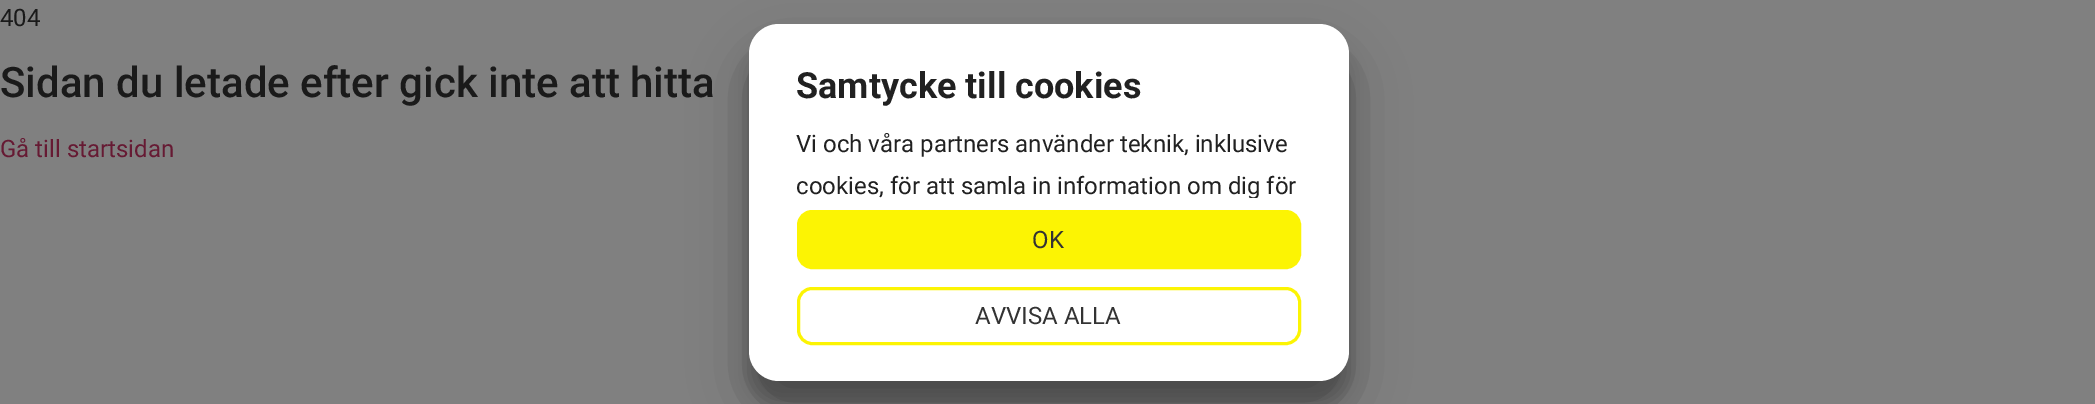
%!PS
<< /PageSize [2095 404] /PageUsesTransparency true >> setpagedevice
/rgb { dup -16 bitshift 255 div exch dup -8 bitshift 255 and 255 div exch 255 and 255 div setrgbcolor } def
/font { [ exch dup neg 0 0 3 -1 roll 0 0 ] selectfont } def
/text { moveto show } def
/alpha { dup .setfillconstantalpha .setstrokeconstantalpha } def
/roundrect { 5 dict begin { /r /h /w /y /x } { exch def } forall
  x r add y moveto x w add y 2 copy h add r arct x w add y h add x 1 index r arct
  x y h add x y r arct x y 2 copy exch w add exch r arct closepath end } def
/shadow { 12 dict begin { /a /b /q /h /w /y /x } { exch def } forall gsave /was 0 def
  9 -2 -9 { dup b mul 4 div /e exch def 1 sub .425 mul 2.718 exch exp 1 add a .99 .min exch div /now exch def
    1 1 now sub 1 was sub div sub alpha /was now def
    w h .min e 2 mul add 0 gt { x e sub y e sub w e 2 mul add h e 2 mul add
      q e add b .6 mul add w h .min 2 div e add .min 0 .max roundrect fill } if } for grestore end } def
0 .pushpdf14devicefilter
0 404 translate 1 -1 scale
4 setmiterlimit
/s1 { /Roboto-Regular 24 font 16#1A1A1A rgb } def
/s2 { /Roboto-Medium 42 font 16#1A1A1A rgb } def
/s3 { /Roboto-Regular 24 font 16#661A33 rgb } def
/s4 { /Roboto-Bold 36 font 16#212121 rgb } def
/s5 { /Roboto-Regular 24 font 16#212121 rgb } def
/s6 { /Roboto-Regular 24 font 16#333333 rgb } def
16#808080 rgb
0 0 2095 404 rectfill
s1
(404) 0 26 text
s2
(Sidan du letade efter gick inte att hitta) 0 97 text
s3
(Gå till startsidan) 0 157 text
16#000000 rgb
749 47 600 357 30 9 0.22 shadow
749 53 600 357 30 28.5 0.3 shadow
16#FFFFFF rgb
749 24 600 357 30 roundrect fill
s4
(Samtycke till cookies) 796 98 text
s5
(Vi och våra partners använder teknik, inklusive) 796 152 text
(cookies, för att samla in information om dig för) 796 194 text
16#FFFFFF rgb
1249 198 8 1 rectfill
16#FCF403 rgb
798.5 211.5 501 56 13.5 roundrect gsave fill grestore
3 setlinewidth
stroke
s6
(OK) 1032 248 text
16#FCF403 rgb
798.5 288.5 501 55 13.5 roundrect stroke
s6
(AVVISA ALLA) 975 324 text
.poppdf14devicefilter showpage
